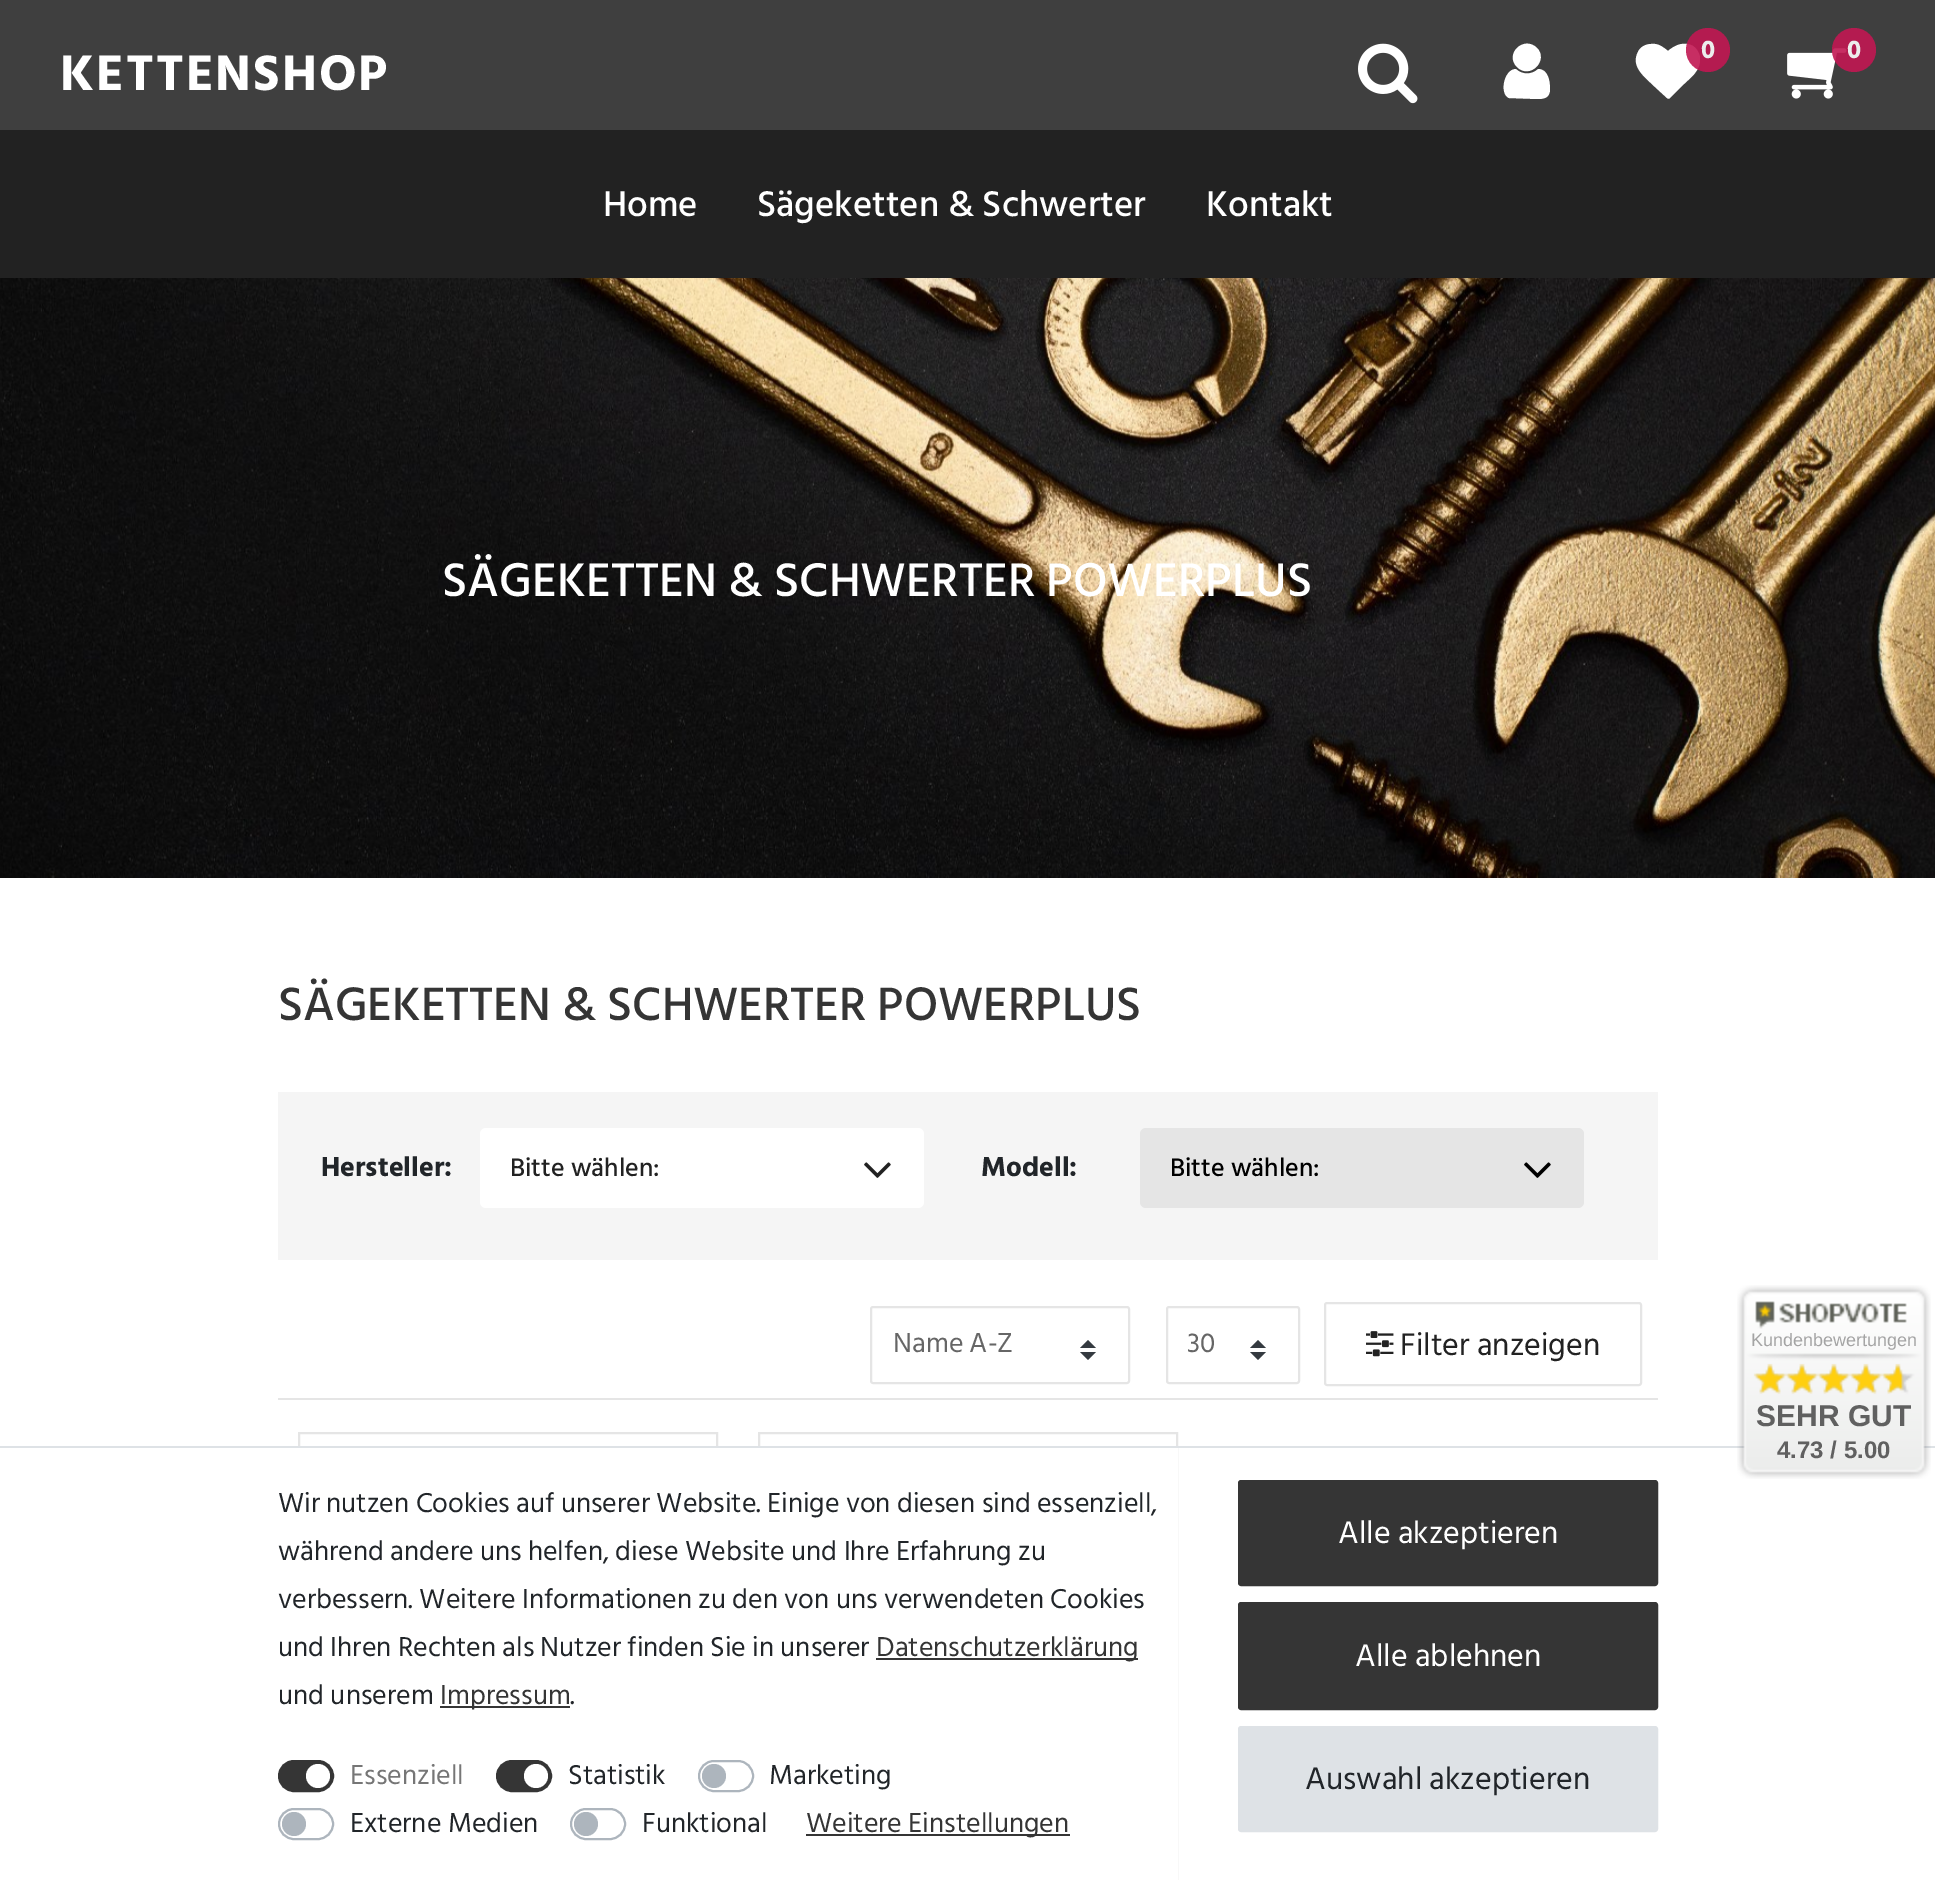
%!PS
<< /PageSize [1935 1880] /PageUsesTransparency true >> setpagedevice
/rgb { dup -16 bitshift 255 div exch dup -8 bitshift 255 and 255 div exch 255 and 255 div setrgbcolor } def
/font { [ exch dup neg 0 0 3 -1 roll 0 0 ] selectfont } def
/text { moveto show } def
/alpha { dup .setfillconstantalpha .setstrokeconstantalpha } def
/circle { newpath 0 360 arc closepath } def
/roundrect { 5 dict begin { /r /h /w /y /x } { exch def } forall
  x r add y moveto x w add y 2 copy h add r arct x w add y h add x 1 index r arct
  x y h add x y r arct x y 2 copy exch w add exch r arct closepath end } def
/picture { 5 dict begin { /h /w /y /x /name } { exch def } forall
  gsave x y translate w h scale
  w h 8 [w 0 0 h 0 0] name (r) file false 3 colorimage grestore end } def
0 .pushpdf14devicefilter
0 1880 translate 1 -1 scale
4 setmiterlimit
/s1 { /HindSiliguri-Bold 26 font 16#ECECEC rgb } def
/s2 { /HindSiliguri-Medium 36.75 font 16#FFFFFF rgb } def
/s3 { /HindSiliguri-Medium 48.4 font 16#FFFFFF rgb } def
/s4 { /HindSiliguri-Medium 48 font 16#353535 rgb } def
/s5 { /HindSiliguri-Bold 28 font 16#212529 rgb } def
/s6 { /HindSiliguri-Medium 26 font 16#222222 rgb } def
/s7 { /HindSiliguri-Medium 26 font 16#000000 rgb } def
/s8 { /HindSiliguri-Regular 28 font 16#666666 rgb } def
/s9 { /HindSiliguri-Regular 32 font 16#222222 rgb } def
/s10 { /HindSiliguri-Regular 28 font 16#212529 rgb } def
/s11 { /HindSiliguri-Regular 28 font 16#353535 rgb } def
/s12 { /HindSiliguri-Regular 28 font 16#767676 rgb } def
/s13 { /HindSiliguri-Regular 32 font 16#FFFFFF rgb } def
/s14 { /HindSiliguri-Regular 32 font 16#212529 rgb } def
/s15 { /LiberationSans-Regular 18 font 16#A4A4A4 rgb } def
/s16 { /LiberationSans-Bold 30 font 16#606060 rgb } def
/s17 { /LiberationSans-Bold 24 font 16#606060 rgb } def
16#FFFFFF rgb
0 0 1935 1880 rectfill
16#3F3F3F rgb
0 0 1935 130 rectfill
(pic1.raw) 1358 43 60 61 picture
16#FFFFFF rgb
1550 89 moveto 1550 98 1544 99 1537 99 curveto 1509 98 lineto 1499 94 1504 69 1516 69 curveto 1522 75 1532 75 1538 69 curveto 1548 69 1550 81 1550 89 curveto closepath 1537 48 moveto 1549 60 1530 80 1517 67 curveto 1504 54 1524 35 1537 48 curveto closepath fill
1670 98 moveto 1669 99 1668 99 1667 98 curveto 1655 87 lineto 1646 78 1630 67 1638 52 curveto 1640 47 1646 44 1651 44 curveto 1658 43 1663 47 1668 51 curveto 1675 45 1684 41 1693 46 curveto 1697 49 1699 52 1700 57 curveto 1700 61 1700 65 1698 68 curveto 1695 75 1689 79 1684 84 curveto closepath fill
0.9 alpha
16#C11752 rgb
1708 50 22 circle fill
1 alpha
s1
(0) 1701 58 text
(pic2.raw) 1787 48 60 51 picture
0.9 alpha
16#C11752 rgb
1854 50 22 circle fill
1 alpha
s1
(0) 1847 58 text
/HindSiliguri-Bold 51.25 font
16#FFFFFF rgb
60 90 moveto 2 0 (KETTENSHOP) ashow
16#222222 rgb
0 130 1935 148 rectfill
s2
(Home) 603 216 text
(Sägeketten & Schwerter) 757 216 text
(Kontakt) 1206 216 text
(pic3.raw) 0 278 1935 600 picture
s3
(SÄGEKETTEN & SCHWERTER) 442 596 text
(POWERPLUS) 1046 596 text
s4
(SÄGEKETTEN & SCHWERTER POWERPLUS) 278 1020 text
16#F5F5F5 rgb
278 1092 1380 168 rectfill
s5
(Hersteller:) 321 1176 text
16#FFFFFF rgb
480 1128 444 80 6 roundrect fill
s6
(Bitte wählen:) 510 1176 text
(pic4.raw) 864 1162 27 16 picture
s5
(Modell:) 981 1176 text
16#E5E5E5 rgb
1140 1128 444 80 6 roundrect fill
s7
(Bitte wählen:) 1170 1176 text
(pic5.raw) 1524 1162 27 16 picture
16#E5E5E5 rgb
278 1398 1380 2 rectfill
16#343A40 rgb
1088 1340 moveto 1080 1348 lineto 1096 1348 lineto closepath 1088 1360 moveto 1080 1352 lineto 1096 1352 lineto closepath fill
16#E5E5E5 rgb
2 setlinewidth
871 1307 258 76 2 roundrect stroke
s8
(Name A-Z) 893 1352 text
16#343A40 rgb
1258 1340 moveto 1250 1348 lineto 1266 1348 lineto closepath 1258 1360 moveto 1250 1352 lineto 1266 1352 lineto closepath fill
16#E5E5E5 rgb
1167 1307 132 76 2 roundrect stroke
s8
(30) 1187 1352 text
16#E5E5E5 rgb
1325 1303 316 82 2 roundrect stroke
(pic6.raw) 1366 1331 28 26 picture
s9
(Filter anzeigen) 1400 1355 text
16#E5E5E5 rgb
299 1433 418 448 rectstroke
759 1433 418 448 rectstroke
16#FFFFFF rgb
298 1448 880 432 rectfill
16#DEE2E6 rgb
0 1446 1935 2 rectfill
s10
(Wir nutzen Cookies auf unserer Website. Einige von diesen sind essenziell,) 278 1512 text
(während andere uns helfen, diese Website und Ihre Erfahrung zu) 278 1560 text
(verbessern. Weitere Informationen zu den von uns verwendeten Cookies) 278 1608 text
(und Ihren Rechten als Nutzer finden Sie in unserer) 278 1656 text
16#353535 rgb
876 1658 262 2 rectfill
(Datenschutzerklärung) 876 1656 text
s10
(und unserem) 278 1704 text
16#353535 rgb
440 1706 130 2 rectfill
(Impressum) 440 1704 text
s10
(.) 570 1704 text
16#353535 rgb
279 1761 54 30 15 roundrect gsave fill grestore
stroke
s12
(Essenziell) 350 1784 text
16#FFFFFF rgb
318 1776 12 circle fill
16#353535 rgb
497 1761 54 30 15 roundrect gsave fill grestore
stroke
s10
(Statistik) 568 1784 text
16#FFFFFF rgb
536 1776 12 circle fill
16#ADB5BD rgb
699 1761 54 30 15 roundrect stroke
s10
(Marketing) 769 1784 text
16#ADB5BD rgb
714 1776 12 circle fill
279 1809 54 30 15 roundrect stroke
s10
(Externe Medien) 350 1832 text
16#ADB5BD rgb
294 1824 12 circle fill
571 1809 54 30 15 roundrect stroke
s10
(Funktional) 642 1832 text
16#ADB5BD rgb
586 1824 12 circle fill
16#353535 rgb
806 1834 264 2 rectfill
(Weitere Einstellungen) 806 1832 text
1239 1481 418 104 2 roundrect gsave fill grestore
stroke
s13
(Alle akzeptieren) 1338 1543 text
16#353535 rgb
1239 1603 418 106 2 roundrect gsave fill grestore
stroke
s13
(Alle ablehnen) 1355 1666 text
16#DEE2E6 rgb
1239 1727 418 104 2 roundrect gsave fill grestore
stroke
s14
(Auswahl akzeptieren) 1305 1789 text
(pic7.raw) 1737 1285 194 194 picture
s15
(Kundenbewertungen) 1751 1346 text
(pic8.raw) 1754 1364 150 30 picture
s16
(SEHR GUT) 1756 1426 text
s17
(4.73 / 5.00) 1777 1458 text
.poppdf14devicefilter showpage
